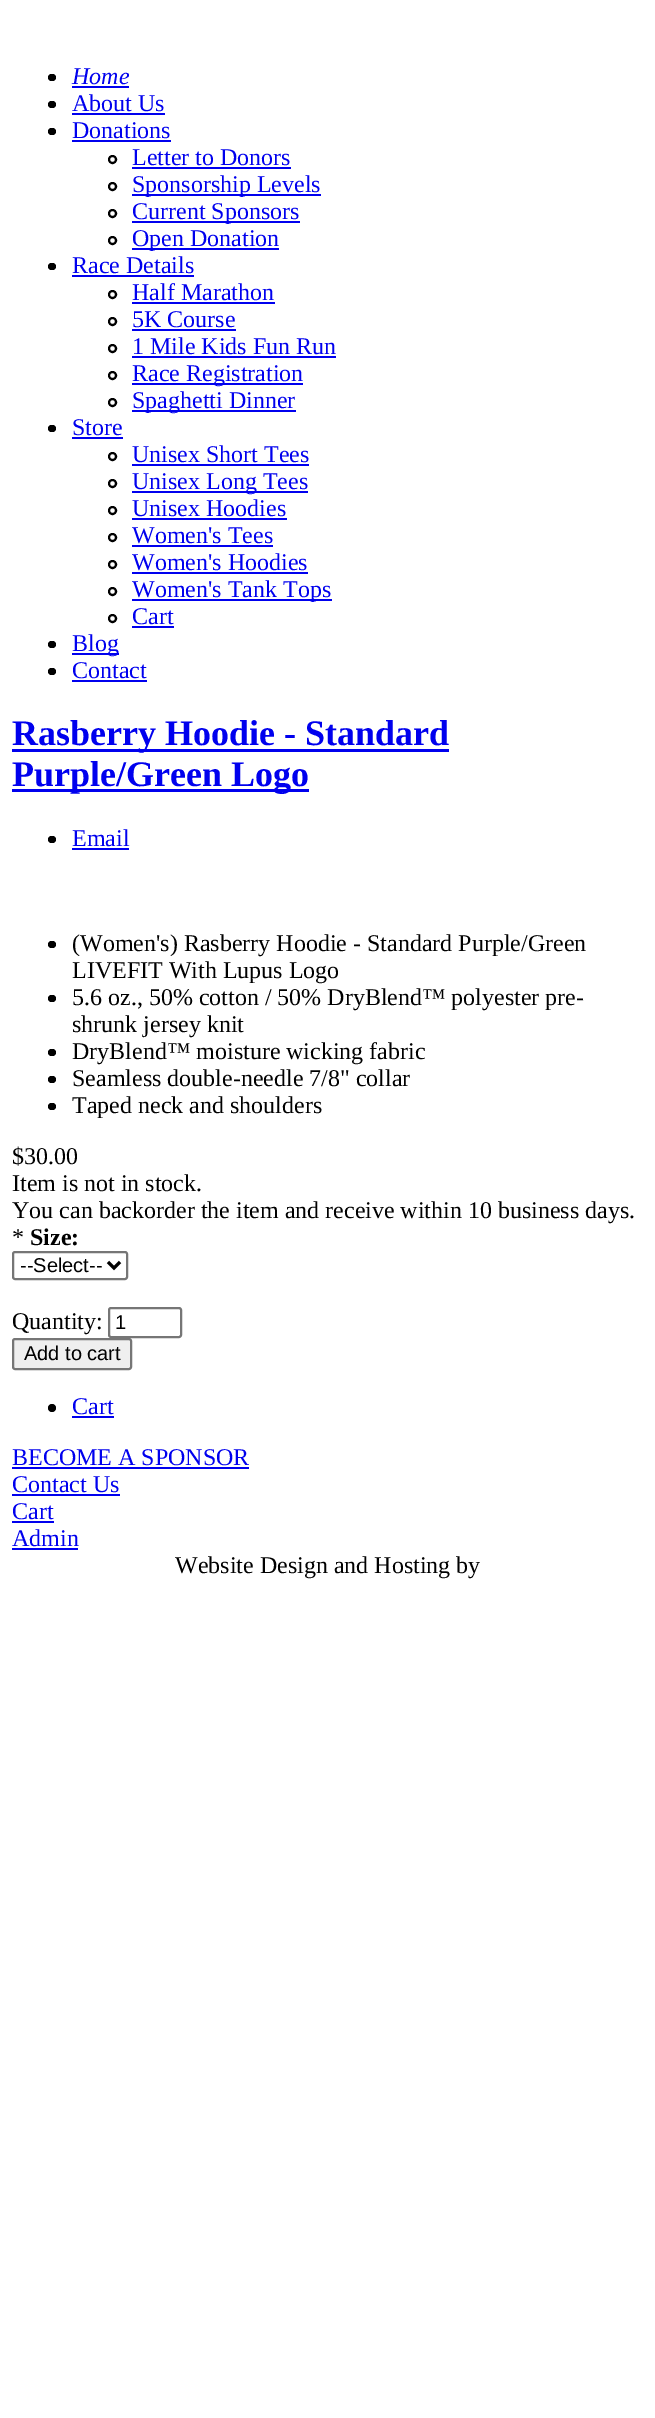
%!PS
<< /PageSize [655 2418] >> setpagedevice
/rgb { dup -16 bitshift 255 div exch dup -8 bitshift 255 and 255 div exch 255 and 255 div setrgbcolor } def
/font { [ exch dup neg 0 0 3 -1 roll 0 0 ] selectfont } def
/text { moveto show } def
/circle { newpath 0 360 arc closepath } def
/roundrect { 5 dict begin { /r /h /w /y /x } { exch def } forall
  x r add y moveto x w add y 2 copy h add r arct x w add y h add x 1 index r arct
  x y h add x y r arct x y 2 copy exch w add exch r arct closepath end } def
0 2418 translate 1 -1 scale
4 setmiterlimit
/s1 { /LiberationSerif-Italic 24 font 16#0000EE rgb } def
/s2 { /LiberationSerif-Regular 24 font 16#0000EE rgb } def
/s3 { /LiberationSerif-Bold 36 font 16#0000EE rgb } def
/s4 { /LiberationSerif-Regular 24 font 16#000000 rgb } def
/s5 { /LiberationSerif-Bold 24 font 16#000000 rgb } def
/s6 { /LiberationSans-Regular 20 font 16#000000 rgb } def
16#FFFFFF rgb
0 0 655 2418 rectfill
16#000000 rgb
48 74 8 7 3.5 roundrect fill
s1
(Home) 72 84 text
72 86 57 2 rectfill
16#000000 rgb
48 101 8 7 3.5 roundrect fill
s2
(About Us) 72 111 text
72 113 93 2 rectfill
16#000000 rgb
48 128 8 7 3.5 roundrect fill
s2
(Donations) 72 138 text
72 140 99 2 rectfill
16#000000 rgb
2 setlinewidth
112.5 159.5 3.5 circle stroke
s2
(Letter to Donors) 132 165 text
132 167 159 2 rectfill
16#000000 rgb
112.5 186.5 3.5 circle stroke
16#0000EE rgb
132 194 189 2 rectfill
(Sponsorship Levels) 132 192 text
16#000000 rgb
112.5 213.5 3.5 circle stroke
16#0000EE rgb
132 221 168 2 rectfill
(Current Sponsors) 132 219 text
16#000000 rgb
112.5 240.5 3.5 circle stroke
16#0000EE rgb
132 248 147 2 rectfill
(Open Donation) 132 246 text
16#000000 rgb
48 263 8 7 3.5 roundrect fill
s2
(Race Details) 72 273 text
72 275 122 2 rectfill
16#000000 rgb
112.5 294.5 3.5 circle stroke
s2
(Half Marathon) 132 300 text
132 302 143 2 rectfill
16#000000 rgb
112.5 321.5 3.5 circle stroke
s2
(5K Course) 132 327 text
132 329 104 2 rectfill
16#000000 rgb
112.5 348.5 3.5 circle stroke
s2
(1 Mile Kids Fun Run) 132 354 text
132 356 204 2 rectfill
16#000000 rgb
112.5 375.5 3.5 circle stroke
16#0000EE rgb
132 383 171 2 rectfill
(Race Registration) 132 381 text
16#000000 rgb
112.5 402.5 3.5 circle stroke
16#0000EE rgb
132 410 164 2 rectfill
(Spaghetti Dinner) 132 408 text
16#000000 rgb
48 425 8 7 3.5 roundrect fill
s2
(Store) 72 435 text
72 437 51 2 rectfill
16#000000 rgb
112.5 456.5 3.5 circle stroke
s2
(Unisex Short Tees) 132 462 text
132 464 177 2 rectfill
16#000000 rgb
112.5 483.5 3.5 circle stroke
16#0000EE rgb
132 491 176 2 rectfill
(Unisex Long Tees) 132 489 text
16#000000 rgb
112.5 510.5 3.5 circle stroke
s2
(Unisex Hoodies) 132 516 text
132 518 155 2 rectfill
16#000000 rgb
112.5 537.5 3.5 circle stroke
s2
(Women's Tees) 132 543 text
132 545 141 2 rectfill
16#000000 rgb
112.5 564.5 3.5 circle stroke
s2
(Women's Hoodies) 132 570 text
132 572 176 2 rectfill
16#000000 rgb
112.5 591.5 3.5 circle stroke
16#0000EE rgb
132 599 200 2 rectfill
(Women's Tank Tops) 132 597 text
16#000000 rgb
112.5 618.5 3.5 circle stroke
s2
(Cart) 132 624 text
132 626 42 2 rectfill
16#000000 rgb
48 641 8 7 3.5 roundrect fill
16#0000EE rgb
72 653 47 2 rectfill
(Blog) 72 651 text
16#000000 rgb
48 668 8 7 3.5 roundrect fill
s2
(Contact) 72 678 text
72 680 75 2 rectfill
12 749 437 3 rectfill
s3
(Rasberry Hoodie - Standard) 12 745 text
12 789 297 3 rectfill
(Purple/Green Logo) 12 786 text
16#000000 rgb
48 836 8 7 3.5 roundrect fill
s2
(Email) 72 846 text
72 848 57 2 rectfill
16#000000 rgb
48 941 8 7 3.5 roundrect fill
(\(Women's\) Rasberry Hoodie - Standard Purple/Green) 72 951 text
(LIVEFIT With Lupus Logo) 72 978 text
48 995 8 7 3.5 roundrect fill
(5.6 oz., 50% cotton / 50% DryBlend™ polyester pre-) 72 1005 text
(shrunk jersey knit) 72 1032 text
48 1049 8 7 3.5 roundrect fill
(DryBlend™ moisture wicking fabric) 72 1059 text
48 1076 8 7 3.5 roundrect fill
(Seamless double-needle 7/8" collar) 72 1086 text
48 1103 8 7 3.5 roundrect fill
(Taped neck and shoulders) 72 1113 text
($30.00) 12 1164 text
(Item is not in stock.) 12 1191 text
(You can backorder the item and receive within 10 business days.) 12 1218 text
(*) 12 1245 text
s5
(Size:) 30 1245 text
16#767676 rgb
13 1252 114 27 2 roundrect stroke
16#000000 rgb
3 setlinewidth
108 1262 moveto 114 1268 lineto 120 1262 lineto stroke
s6
(--Select--) 20 1272 text
s4
(Quantity:) 12 1329 text
16#767676 rgb
2 setlinewidth
109 1308 72 29 2 roundrect stroke
s6
(1) 115 1329 text
16#EFEFEF rgb
13 1339 118 30 2 roundrect gsave fill grestore
16#767676 rgb
stroke
s6
(Add to cart) 24 1360 text
52 1408 4 circle fill
s2
(Cart) 72 1414 text
72 1416 42 2 rectfill
(BECOME A SPONSOR) 12 1465 text
12 1467 237 2 rectfill
(Contact Us) 12 1492 text
12 1494 108 2 rectfill
(Cart) 12 1519 text
12 1521 42 2 rectfill
(Admin) 12 1546 text
12 1548 66 2 rectfill
s4
(Website Design and Hosting by) 175 1573 text
showpage
